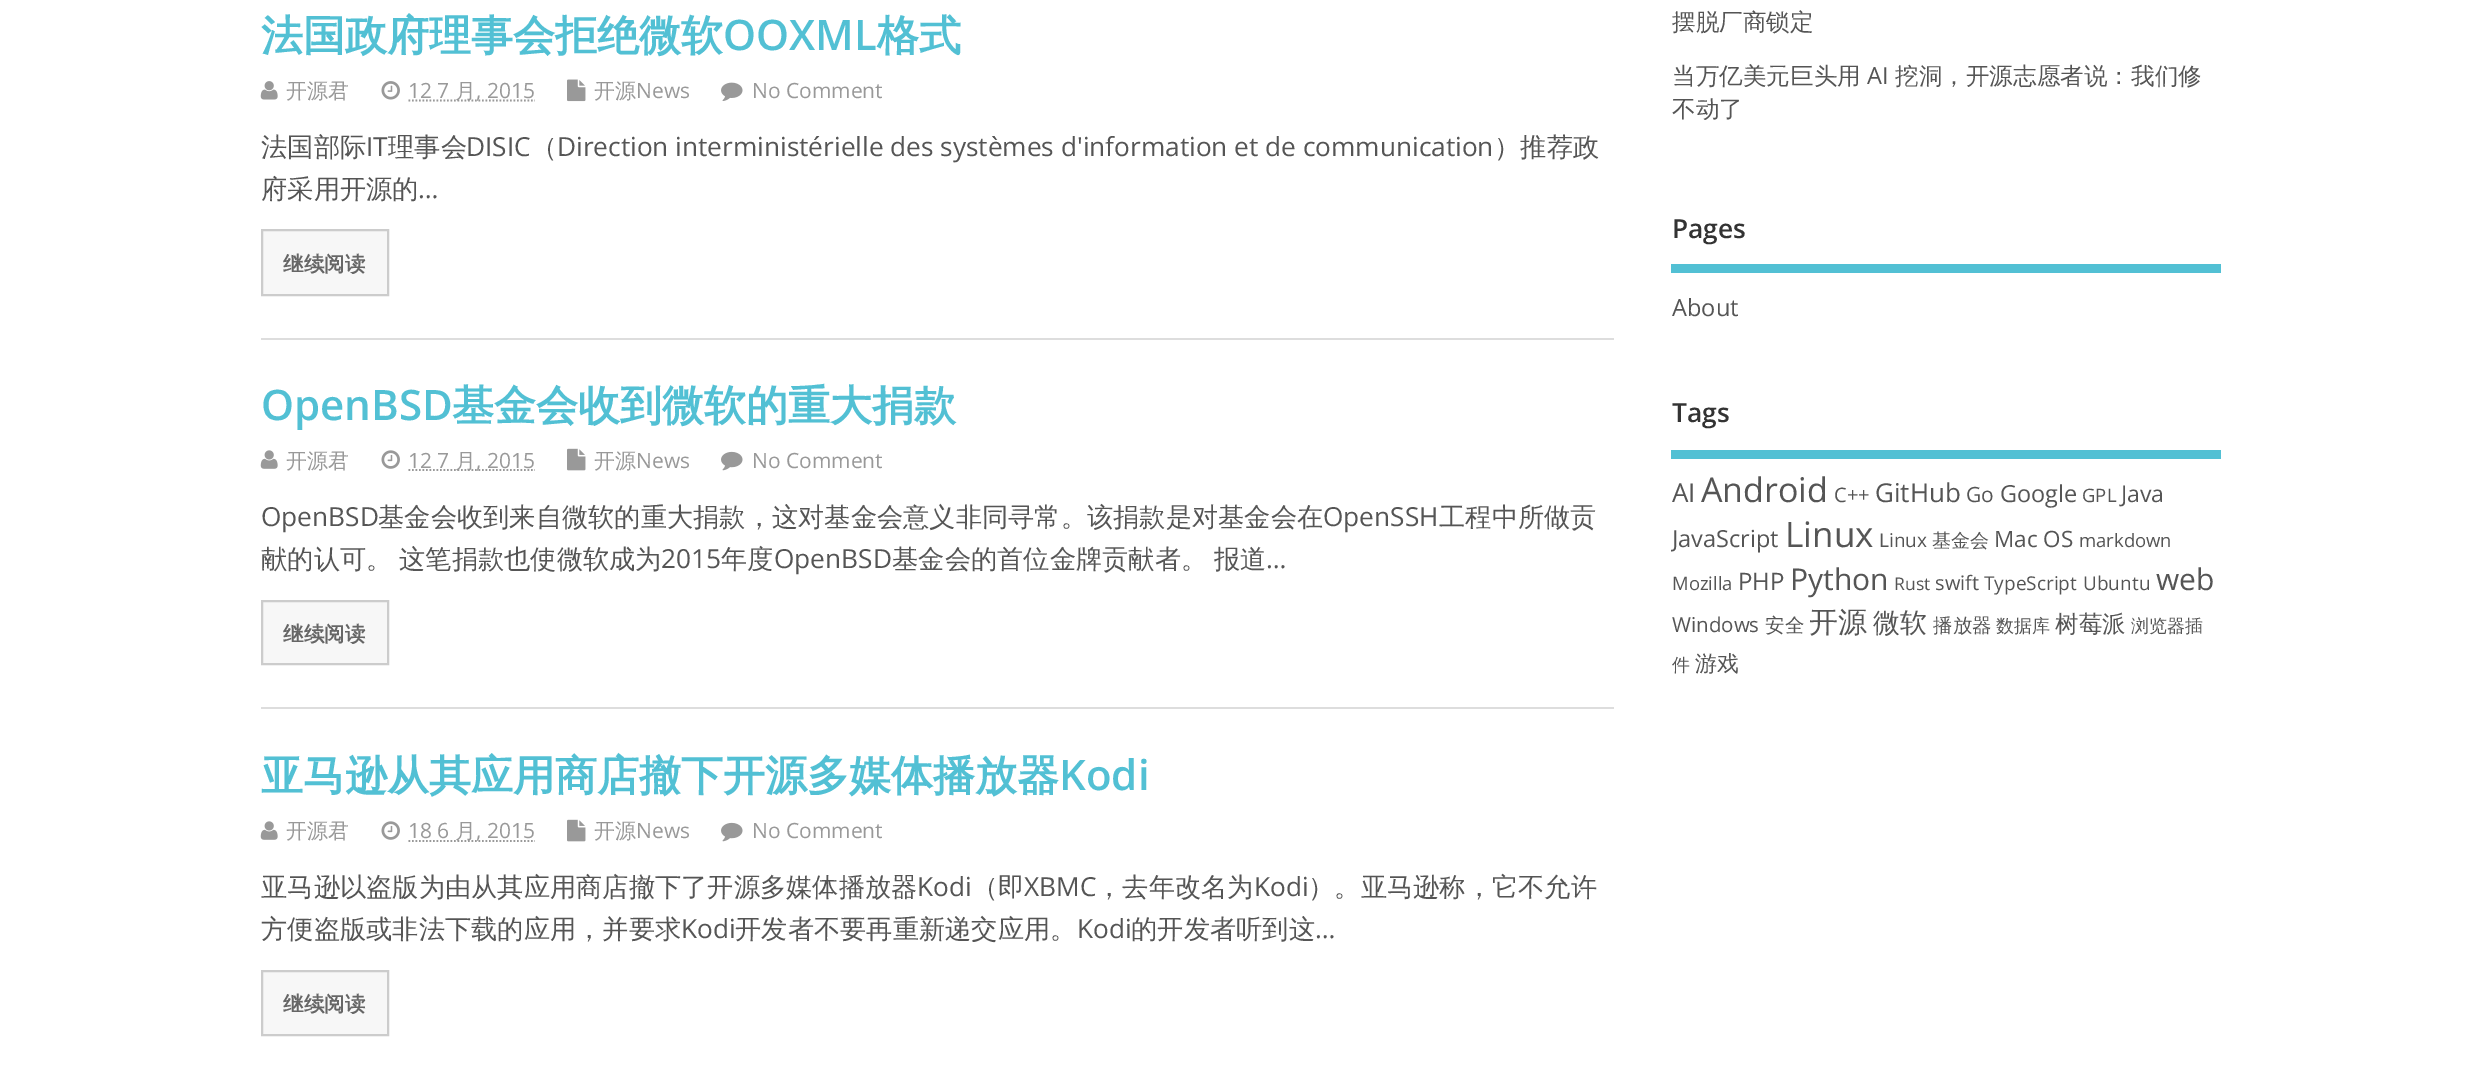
%!PS
<< /PageSize [2481 1069] >> setpagedevice
/rgb { dup -16 bitshift 255 div exch dup -8 bitshift 255 and 255 div exch 255 and 255 div setrgbcolor } def
/font { [ exch dup neg 0 0 3 -1 roll 0 0 ] selectfont } def
/text { moveto show } def
/picture { 5 dict begin { /h /w /y /x /name } { exch def } forall
  gsave x y translate w h scale
  w h 8 [w 0 0 h 0 0] name (r) file false 3 colorimage grestore end } def
0 1069 translate 1 -1 scale
4 setmiterlimit
/s1 { /WenQuanYiZenHei-Bold 42 font 16#52C0D4 rgb } def
/s2 { /OpenSans-SemiBold 42 font 16#52C0D4 rgb } def
/s3 { /WenQuanYiZenHei-Medium 21 font 16#999999 rgb } def
/s4 { /OpenSans-Regular 21 font 16#999999 rgb } def
/s5 { /WenQuanYiZenHei-Medium 26.25 font 16#555555 rgb } def
/s6 { /OpenSans-Regular 26.25 font 16#555555 rgb } def
/s7 { /WenQuanYiZenHei-Bold 20.5 font 16#666666 rgb } def
/s8 { /WenQuanYiZenHei-Medium 23.6 font 16#555555 rgb } def
/s9 { /OpenSans-Regular 23.6 font 16#555555 rgb } def
/s10 { /OpenSans-SemiBold 26.25 font 16#333333 rgb } def
/s11 { /OpenSans-Regular 26 font 16#555555 rgb } def
/s12 { /OpenSans-Regular 34 font 16#555555 rgb } def
/s13 { /OpenSans-Regular 20 font 16#555555 rgb } def
/s14 { /OpenSans-Regular 21 font 16#555555 rgb } def
/s15 { /OpenSans-Regular 23.5 font 16#555555 rgb } def
/s16 { /OpenSans-Regular 18.5 font 16#555555 rgb } def
/s17 { /OpenSans-Regular 23 font 16#555555 rgb } def
/s18 { /OpenSans-Regular 35 font 16#555555 rgb } def
/s19 { /OpenSans-Regular 19 font 16#555555 rgb } def
/s20 { /WenQuanYiZenHei-Medium 19 font 16#555555 rgb } def
/s21 { /OpenSans-Regular 22.5 font 16#555555 rgb } def
/s22 { /OpenSans-Regular 24 font 16#555555 rgb } def
/s23 { /OpenSans-Regular 30 font 16#555555 rgb } def
/s24 { /OpenSans-Regular 17.5 font 16#555555 rgb } def
/s25 { /OpenSans-Regular 20.5 font 16#555555 rgb } def
/s26 { /WenQuanYiZenHei-Medium 19.5 font 16#555555 rgb } def
/s27 { /WenQuanYiZenHei-Medium 29 font 16#555555 rgb } def
/s28 { /WenQuanYiZenHei-Medium 27 font 16#555555 rgb } def
/s29 { /WenQuanYiZenHei-Medium 18 font 16#555555 rgb } def
/s30 { /WenQuanYiZenHei-Medium 23.5 font 16#555555 rgb } def
/s31 { /WenQuanYiZenHei-Medium 22 font 16#555555 rgb } def
16#FFFFFF rgb
0 0 2481 1069 rectfill
16#DDDDDD rgb
261 338 1353 2 rectfill
s1
(法国政府理事会拒绝微软) 261 50 text
s2
(OOXML) 723 50 text
s1
(格式) 877 50 text
(pic1.raw) 260 81 18 19 picture
s3
(开源君) 286 98 text
(pic2.raw) 381 81 19 19 picture
s4
(12 7) 408 98 text
1.8 setlinewidth
[1.75 1.75] 0 setdash
408.5 100.5 moveto 535 100.5 lineto stroke
s3
(月) 455 98 text
s4
(, 2015) 476 98 text
(pic3.raw) 567 79 19 23 picture
s3
(开源) 594 98 text
s4
(News) 636 98 text
(pic4.raw) 721 82 22 19 picture
(No Comment) 752 98 text
s5
(法国部际) 261 156 text
s6
(IT) 366 156 text
s5
(理事会) 388 156 text
s6
(DISIC) 466 156 text
s5
(（) 531 156 text
s6
(Direction interministérielle des systèmes d'information et de communication) 557 156 text
s5
(）推荐政) 1494 156 text
(府采用开源的) 261 198 text
s6
(…) 418 198 text
16#F7F7F7 rgb
262 230 moveto 388 230 lineto 388 295 lineto 262 295 lineto closepath gsave fill grestore
16#CCCCCC rgb
2 setlinewidth
[] 0 setdash
stroke
s7
(继续阅读) 283 271 text
16#DDDDDD rgb
261 707 1353 2 rectfill
s2
(OpenBSD) 261 420 text
s1
(基金会收到微软的重大捐款) 452 420 text
(pic5.raw) 260 450 18 19 picture
s3
(开源君) 286 468 text
(pic6.raw) 381 450 19 19 picture
s4
(12 7) 408 468 text
1.8 setlinewidth
[1.75 1.75] 0 setdash
408.5 470 moveto 535 470 lineto stroke
s3
(月) 455 468 text
s4
(, 2015) 476 468 text
(pic7.raw) 567 448 19 23 picture
s3
(开源) 594 468 text
s4
(News) 636 468 text
(pic8.raw) 721 451 22 20 picture
(No Comment) 752 468 text
s6
(OpenBSD) 261 526 text
s5
(基金会收到来自微软的重大捐款，这对基金会意义非同寻常。该捐款是对基金会在) 378 526 text
s6
(OpenSSH) 1323 526 text
s5
(工程中所做贡) 1439 526 text
261 568 moveto -1 0 32 (献的认可。 这笔捐款也使微软成为) widthshow
s6
(2015) 661 568 text
s5
(年度) 721 568 text
s6
(OpenBSD) 774 568 text
/WenQuanYiZenHei-Medium 26.25 font
892 568 moveto -1 0 32 (基金会的首位金牌贡献者。 报道) widthshow
s6
(…) 1266 568 text
16#F7F7F7 rgb
262 601 moveto 388 601 lineto 388 664 lineto 262 664 lineto closepath gsave fill grestore
16#CCCCCC rgb
2 setlinewidth
[] 0 setdash
stroke
s7
(继续阅读) 283 641 text
s1
(亚马逊从其应用商店撤下开源多媒体播放器) 261 790 text
s2
(Kodi) 1059 790 text
(pic5.raw) 260 821 18 19 picture
s3
(开源君) 286 838 text
(pic6.raw) 381 821 19 19 picture
s4
(18 6) 408 838 text
1.8 setlinewidth
[1.75 1.75] 0 setdash
408.5 841 moveto 535 841 lineto stroke
s3
(月) 455 838 text
s4
(, 2015) 476 838 text
(pic7.raw) 567 819 19 23 picture
s3
(开源) 594 838 text
s4
(News) 636 838 text
(pic8.raw) 721 822 22 20 picture
(No Comment) 752 838 text
s5
(亚马逊以盗版为由从其应用商店撤下了开源多媒体播放器) 261 896 text
s6
(Kodi) 917 896 text
s5
(（即) 972 896 text
s6
(XBMC) 1024 896 text
s5
(，去年改名为) 1096 896 text
s6
(Kodi) 1254 896 text
s5
(）。亚马逊称，它不允许) 1308 896 text
(方便盗版或非法下载的应用，并要求) 261 938 text
s6
(Kodi) 681 938 text
s5
(开发者不要再重新递交应用。) 735 938 text
s6
(Kodi) 1077 938 text
s5
(的开发者听到这) 1131 938 text
s6
(…) 1315 938 text
16#F7F7F7 rgb
262 971 moveto 388 971 lineto 388 1035 lineto 262 1035 lineto closepath gsave fill grestore
16#CCCCCC rgb
2 setlinewidth
[] 0 setdash
stroke
s7
(继续阅读) 283 1011 text
s8
(摆脱厂商锁定) 1672 30 text
(当万亿美元巨头用) 1672 84 text
s9
(AI) 1867 84 text
s8
(挖洞，开源志愿者说：我们修) 1895 84 text
(不动了) 1672 117 text
16#52C0D4 rgb
1671 264 550 9 rectfill
s10
(Pages) 1672 238 text
s9
(About) 1672 316 text
16#52C0D4 rgb
1671 450 550 9 rectfill
s10
(Tags) 1672 422 text
s11
(AI) 1672 502 text
s12
(Android) 1701 502 text
s13
(C++) 1834 502 text
s11
(GitHub) 1875 502 text
s14
(Go) 1966 502 text
s15
(Google) 2000 502 text
s16
(GPL) 2082 502 text
s17
(Java) 2121 502 text
gsave
1671 471 550 213 rectclip
s15
(JavaScript) 1672 547 text
grestore
s18
(Linux) 1785 547 text
s19
(Linux) 1879 547 text
s20
(基金会) 1932 547 text
s21
(Mac OS) 1994 547 text
s16
(markdown) 2079 547 text
(Mozilla) 1672 590 text
s22
(PHP) 1738 590 text
s23
(Python) 1790 590 text
s24
(Rust) 1894 590 text
s13
(swift) 1935 590 text
s19
(TypeScript) 1984 590 text
(Ubuntu) 2083 590 text
s23
(web) 2156 590 text
s25
(Windows) 1672 632 text
s26
(安全) 1765 632 text
s27
(开源) 1809 632 text
s28
(微软) 1873 632 text
s26
(播放器) 1933 632 text
s29
(数据库) 1996 632 text
s30
(树莓派) 2055 632 text
s29
(浏览器插) 2131 632 text
(件) 1672 671 text
s31
(游戏) 1695 671 text
showpage
